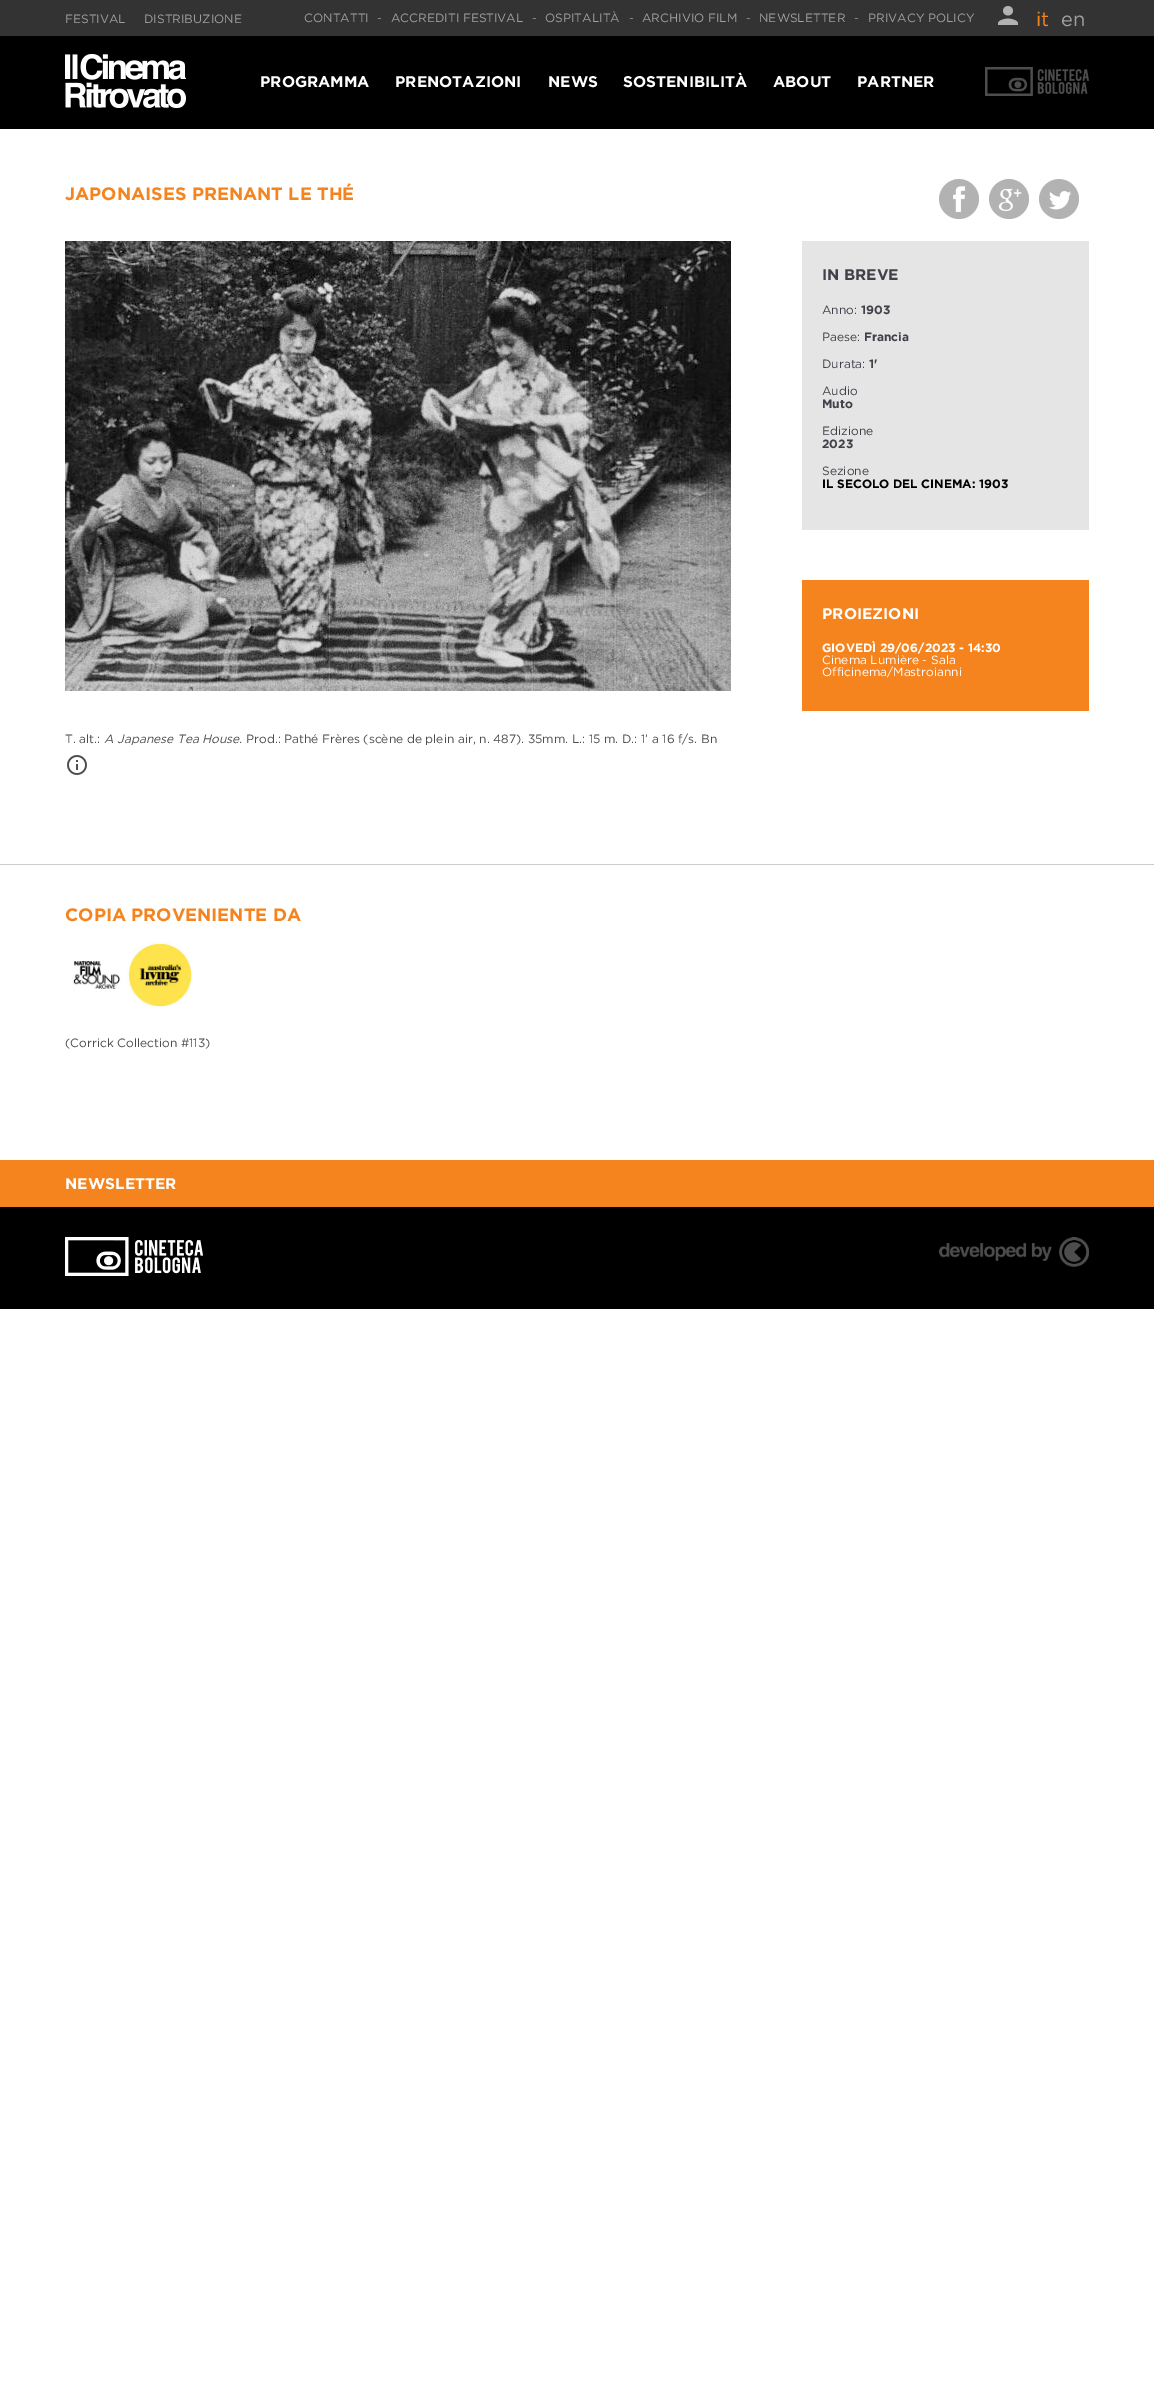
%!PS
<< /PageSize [1154 2381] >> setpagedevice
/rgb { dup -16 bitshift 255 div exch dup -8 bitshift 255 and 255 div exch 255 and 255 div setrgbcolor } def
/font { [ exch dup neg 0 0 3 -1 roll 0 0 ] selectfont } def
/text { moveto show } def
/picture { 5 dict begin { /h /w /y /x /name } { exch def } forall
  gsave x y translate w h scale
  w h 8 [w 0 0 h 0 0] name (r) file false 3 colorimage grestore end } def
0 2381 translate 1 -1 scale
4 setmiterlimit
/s1 { /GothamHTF-Regular 12 font 16#A0A0A0 rgb } def
/s2 { /GothamHTF-Regular 20 font 16#F6841E rgb } def
/s3 { /GothamHTF-Regular 20 font 16#A0A0A0 rgb } def
/s4 { /Gotham-Bold 15.5 font 16#FFFFFF rgb } def
/s5 { /Gotham-Bold 18 font 16#F6841E rgb } def
/s6 { /Gotham-Bold 15.5 font 16#434049 rgb } def
/s7 { /GothamHTF-Regular 12 font 16#434049 rgb } def
/s8 { /Gotham-Bold 12 font 16#434049 rgb } def
/s9 { /Gotham-Bold 12 font 16#000000 rgb } def
/s10 { /Gotham-Bold 12 font 16#FFFFFF rgb } def
/s11 { /GothamHTF-Regular 12 font 16#FFFFFF rgb } def
/s12 { /GothamHTF-Regular 12 font 16#4D4D4D rgb } def
/s13 { /GothamHTF-Italic 12 font 16#4D4D4D rgb } def
16#FFFFFF rgb
0 0 1154 2381 rectfill
16#333333 rgb
0 0 1154 36 rectfill
s1
(FESTIVAL) 65 23 text
(DISTRIBUZIONE) 144 23 text
(CONTATTI) 304 22 text
(-) 377 22 text
(ACCREDITI FESTIVAL) 391 22 text
(-) 532 22 text
(OSPITALITÀ) 545 22 text
(-) 629 22 text
(ARCHIVIO FILM) 642 22 text
(-) 746 22 text
(NEWSLETTER) 759 22 text
(-) 854 22 text
(PRIVACY POLICY) 868 22 text
(pic1.raw) 998 6 20 19 picture
s2
(it) 1036 26 text
s3
(en) 1061 26 text
16#000000 rgb
0 36 1154 93 rectfill
(pic2.raw) 65 54 121 54 picture
s4
(PROGRAMMA) 260 87 text
(PRENOTAZIONI) 395 87 text
(NEWS) 548 87 text
(SOSTENIBILITÀ) 623 87 text
(ABOUT) 773 87 text
(PARTNER) 857 87 text
(pic3.raw) 985 67 104 29 picture
s5
(JAPONAISES PRENANT LE THÉ) 65 200 text
(pic4.raw) 939 179 40 40 picture
(pic5.raw) 989 179 40 40 picture
(pic6.raw) 1039 179 40 40 picture
16#E5E5E5 rgb
802 241 287 289 rectfill
s6
(IN BREVE) 822 280 text
s7
(Anno:) 822 314 text
s8
(1903) 861 314 text
s7
(Paese:) 822 341 text
s8
(Francia) 864 341 text
s7
(Durata:) 822 368 text
s8
(1') 869 368 text
s7
(Audio) 822 395 text
s8
(Muto) 822 408 text
s7
(Edizione) 822 435 text
s8
(2023) 822 448 text
s7
(Sezione) 822 475 text
s9
(IL SECOLO DEL CINEMA: 1903) 822 488 text
16#F6841E rgb
802 580 287 131 rectfill
s4
(PROIEZIONI) 822 619 text
s10
(GIOVEDÌ 29/06/2023 - 14:30) 822 652 text
s11
(Cinema Lumière - Sala) 822 664 text
(Officinema/Mastroianni) 822 676 text
(pic7.raw) 65 241 666 450 picture
s12
(T. alt.:) 65 743 text
s13
(A Japanese Tea House.) 104 743 text
s12
(Prod.: Pathé Frères \(scène de plein air, n. 487\). 35mm. L.: 15 m. D.: 1’ a 16 f/s. Bn) 246 743 text
(pic8.raw) 67 755 20 20 picture
16#CCCCCC rgb
0 864 1154 1 rectfill
s5
(COPIA PROVENIENTE DA) 65 921 text
(pic9.raw) 72 942 121 65 picture
s12
(\(Corrick Collection #113\)) 65 1047 text
16#F6841E rgb
0 1160 1154 47 rectfill
s4
(NEWSLETTER) 65 1189 text
16#000000 rgb
0 1207 1154 102 rectfill
(pic10.raw) 65 1237 138 39 picture
(pic11.raw) 939 1237 150 30 picture
showpage
